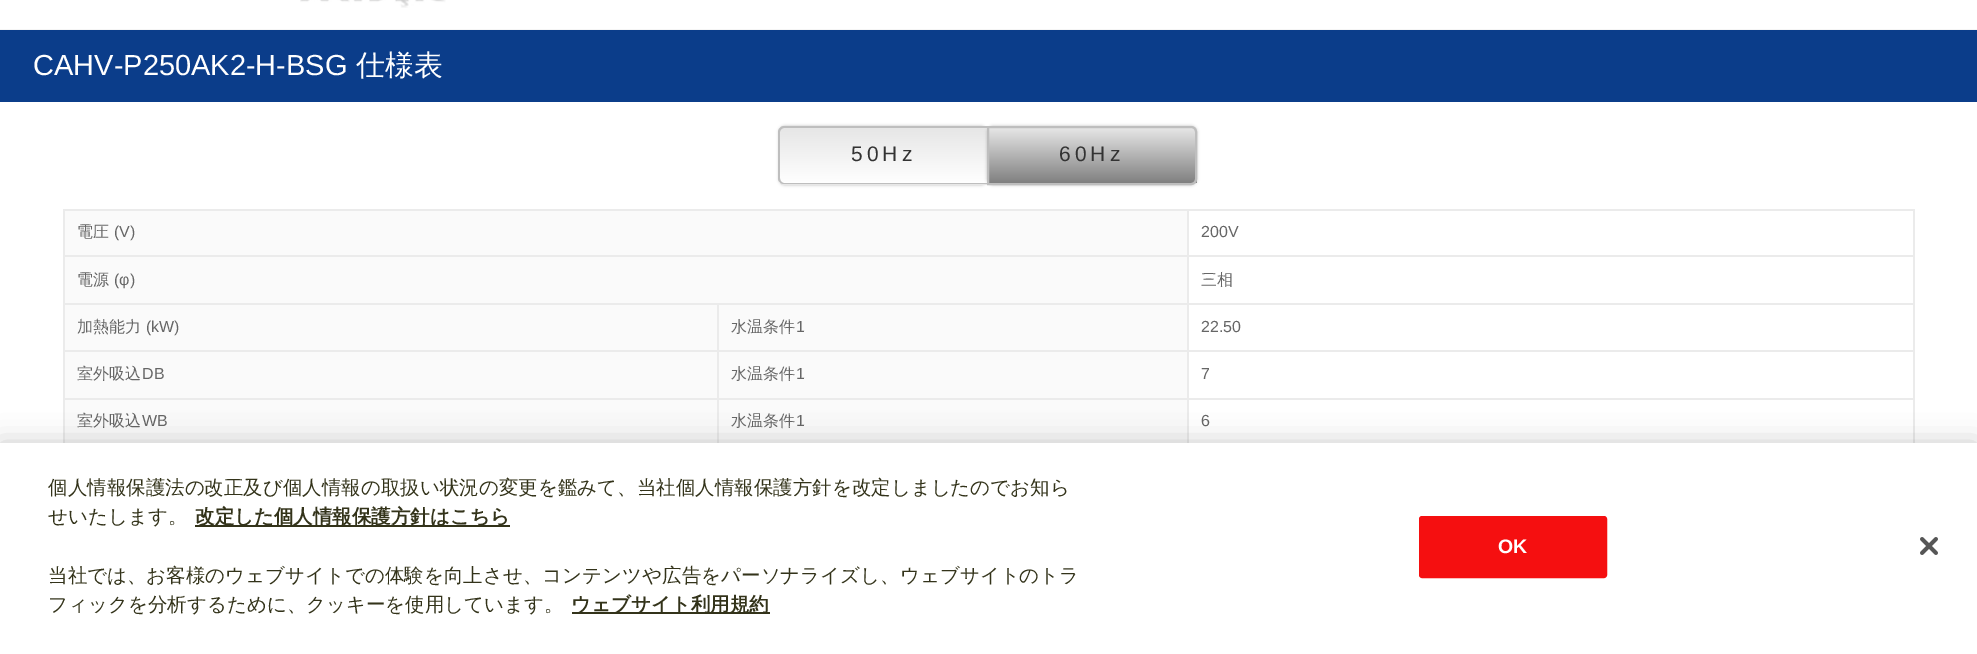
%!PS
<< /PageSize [1977 654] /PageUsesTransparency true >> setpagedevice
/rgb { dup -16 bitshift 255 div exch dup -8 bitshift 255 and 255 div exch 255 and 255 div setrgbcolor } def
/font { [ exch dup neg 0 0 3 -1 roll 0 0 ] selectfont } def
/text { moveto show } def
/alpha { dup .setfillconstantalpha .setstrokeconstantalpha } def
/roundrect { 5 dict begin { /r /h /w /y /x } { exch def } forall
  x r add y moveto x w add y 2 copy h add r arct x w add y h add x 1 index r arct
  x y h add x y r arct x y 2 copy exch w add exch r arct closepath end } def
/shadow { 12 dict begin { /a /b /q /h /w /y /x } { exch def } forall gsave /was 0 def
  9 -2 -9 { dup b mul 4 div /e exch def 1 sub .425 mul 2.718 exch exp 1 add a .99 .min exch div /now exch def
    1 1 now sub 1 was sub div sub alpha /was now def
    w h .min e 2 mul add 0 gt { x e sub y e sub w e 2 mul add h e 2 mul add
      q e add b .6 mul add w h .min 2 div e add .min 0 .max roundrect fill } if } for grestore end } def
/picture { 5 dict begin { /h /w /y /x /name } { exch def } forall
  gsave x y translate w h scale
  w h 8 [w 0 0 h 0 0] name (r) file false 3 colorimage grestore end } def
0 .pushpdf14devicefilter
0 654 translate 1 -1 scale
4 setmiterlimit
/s1 { /LiberationSans-Regular 29 font 16#FFFFFF rgb } def
/s2 { /WenQuanYiZenHei-Medium 29 font 16#FFFFFF rgb } def
/s3 { /WenQuanYiZenHei-Medium 16 font 16#666666 rgb } def
/s4 { /LiberationSans-Regular 16 font 16#666666 rgb } def
/s5 { /WenQuanYiZenHei-Medium 19.5 font 16#33331A rgb } def
/s6 { /WenQuanYiZenHei-Bold 19.5 font 16#33331A rgb } def
/s7 { /LiberationSans-Bold 19.5 font 16#FFFFFF rgb } def
16#FFFFFF rgb
0 0 1977 654 rectfill
16#F5F5F5 rgb
0 29 1977 1 rectfill
(pic1.raw) 300 0 146 8 picture
16#0B3D8A rgb
0 30 1977 72 rectfill
s1
(CAHV-P250AK2-H-BSG) 33 75 text
s2
(仕様表) 356 75 text
16#BEBEBE rgb
779 126 208 59 6 1.5 1 shadow
gsave
785 126 moveto 987 126 lineto 987 185 lineto 785 185 lineto 781.5 185 779 182.5 779 179 curveto 779 132 lineto 779 128.5 781.5 126 785 126 curveto closepath clip newpath
gsave 779 128 moveto 987 128 lineto 987 183 lineto 779 183 lineto closepath clip newpath
<< /ShadingType 2 /ColorSpace /DeviceRGB /Coords [884 128 884 183] /Extend [true true] /Function << /FunctionType 2 /Domain [0 1] /C0 [0.902 0.902 0.902] /C1 [1 1 1] /N 1 >> >> shfill grestore
gsave 779 183 moveto 987 183 lineto 987 185 lineto 779 185 lineto closepath clip newpath
<< /ShadingType 2 /ColorSpace /DeviceRGB /Coords [884 183 884 239] /Extend [true true] /Function << /FunctionType 2 /Domain [0 1] /C0 [0.902 0.902 0.902] /C1 [1 1 1] /N 1 >> >> shfill grestore
grestore
784 126 moveto 987 126 lineto 987 184 lineto 784 184 lineto 781 184 778 182 778 178 curveto 778 132 lineto 778 129 781 126 784 126 curveto closepath 784 128 moveto 987 128 lineto 987 183 lineto 784 183 lineto 782 183 780 181 780 178 curveto 780 132 lineto 780 130 782 128 784 128 curveto closepath eofill
/LiberationSans-Regular 21 font
16#333333 rgb
851 161 moveto 4 0 (50Hz) ashow
16#BEBEBE rgb
987 126 210 59 6 1.5 1 shadow
gsave
987 126 moveto 1191 126 lineto 1194.5 126 1197 128.5 1197 132 curveto 1197 179 lineto 1197 182.5 1194.5 185 1191 185 curveto 987 185 lineto closepath clip newpath
gsave 989 128 moveto 1197 128 lineto 1197 183 lineto 989 183 lineto closepath clip newpath
<< /ShadingType 2 /ColorSpace /DeviceRGB /Coords [1092 128 1092 183] /Extend [true true] /Function << /FunctionType 2 /Domain [0 1] /C0 [0.902 0.902 0.902] /C1 [0.502 0.502 0.502] /N 1 >> >> shfill grestore
grestore
2 setlinewidth
988 127 moveto 1191 127 lineto 1194 127 1196 129 1196 132 curveto 1196 179 lineto 1196 182 1194 184 1191 184 curveto 988 184 lineto closepath stroke
16#333333 rgb
1059 161 moveto 4 0 (60Hz) ashow
16#EBEBEB rgb
1913 209 2 234 rectfill
16#FAFAFA rgb
65 211 1122 44 rectfill
16#EBEBEB rgb
1187 209 727 2 rectfill
1187 255 727 2 rectfill
1187 303 727 2 rectfill
1187 350 727 2 rectfill
1187 398 727 2 rectfill
1187 398 2 48 rectfill
717 398 471 2 rectfill
1187 350 2 49 rectfill
717 350 471 2 rectfill
1187 303 2 48 rectfill
717 303 471 2 rectfill
1187 255 2 50 rectfill
63 255 1125 2 rectfill
1187 209 2 48 rectfill
63 209 1125 2 rectfill
717 398 2 48 rectfill
63 398 656 2 rectfill
717 350 2 49 rectfill
63 350 656 2 rectfill
717 303 2 48 rectfill
63 303 656 2 rectfill
63 398 2 48 rectfill
63 350 2 49 rectfill
63 303 2 48 rectfill
63 255 2 50 rectfill
63 209 2 48 rectfill
s3
(電圧) 77 237 text
s4
(\(V\)) 114 237 text
(200V) 1201 237 text
16#FAFAFA rgb
65 257 1122 46 rectfill
s3
(電源) 77 285 text
s4
(\(φ\)) 114 285 text
s3
(三相) 1201 285 text
16#FAFAFA rgb
65 305 652 45 rectfill
s3
(加熱能力) 77 332 text
s4
(\(kW\)) 146 332 text
16#FAFAFA rgb
719 305 468 45 rectfill
s3
(水温条件) 731 332 text
s4
(1) 796 332 text
(22.50) 1201 332 text
16#FAFAFA rgb
65 352 652 46 rectfill
s3
(室外吸込) 77 379 text
s4
(DB) 142 379 text
16#FAFAFA rgb
719 352 468 46 rectfill
s3
(水温条件) 731 379 text
s4
(1) 796 379 text
(7) 1201 379 text
16#FAFAFA rgb
65 400 652 43 rectfill
s3
(室外吸込) 77 426 text
s4
(WB) 142 426 text
16#FAFAFA rgb
719 400 468 43 rectfill
s3
(水温条件) 731 426 text
s4
(1) 796 426 text
(6) 1201 426 text
16#000000 rgb
0 443 1977 211 0 13.5 0.2 shadow
16#FFFFFF rgb
0 443 1977 211 rectfill
s5
(個人情報保護法の改正及び個人情報の取扱い状況の変更を鑑みて、当社個人情報保護方針を改定しましたのでお知ら) 48 494 text
(せいたします。) 48 523 text
195 525 315 2 rectfill
s6
(改定した個人情報保護方針はこちら) 195 523 text
s5
(当社では、お客様のウェブサイトでの体験を向上させ、コンテンツや広告をパーソナライズし、ウェブサイトのトラ) 48 582 text
(フィックを分析するために、クッキーを使用しています。) 48 611 text
572 612 198 2 rectfill
s6
(ウェブサイト利用規約) 571 611 text
16#F50F10 rgb
1420 517 186 60 2 roundrect gsave fill grestore
stroke
s7
(OK) 1498 553 text
(pic2.raw) 1920 537 18 18 picture
.poppdf14devicefilter showpage
